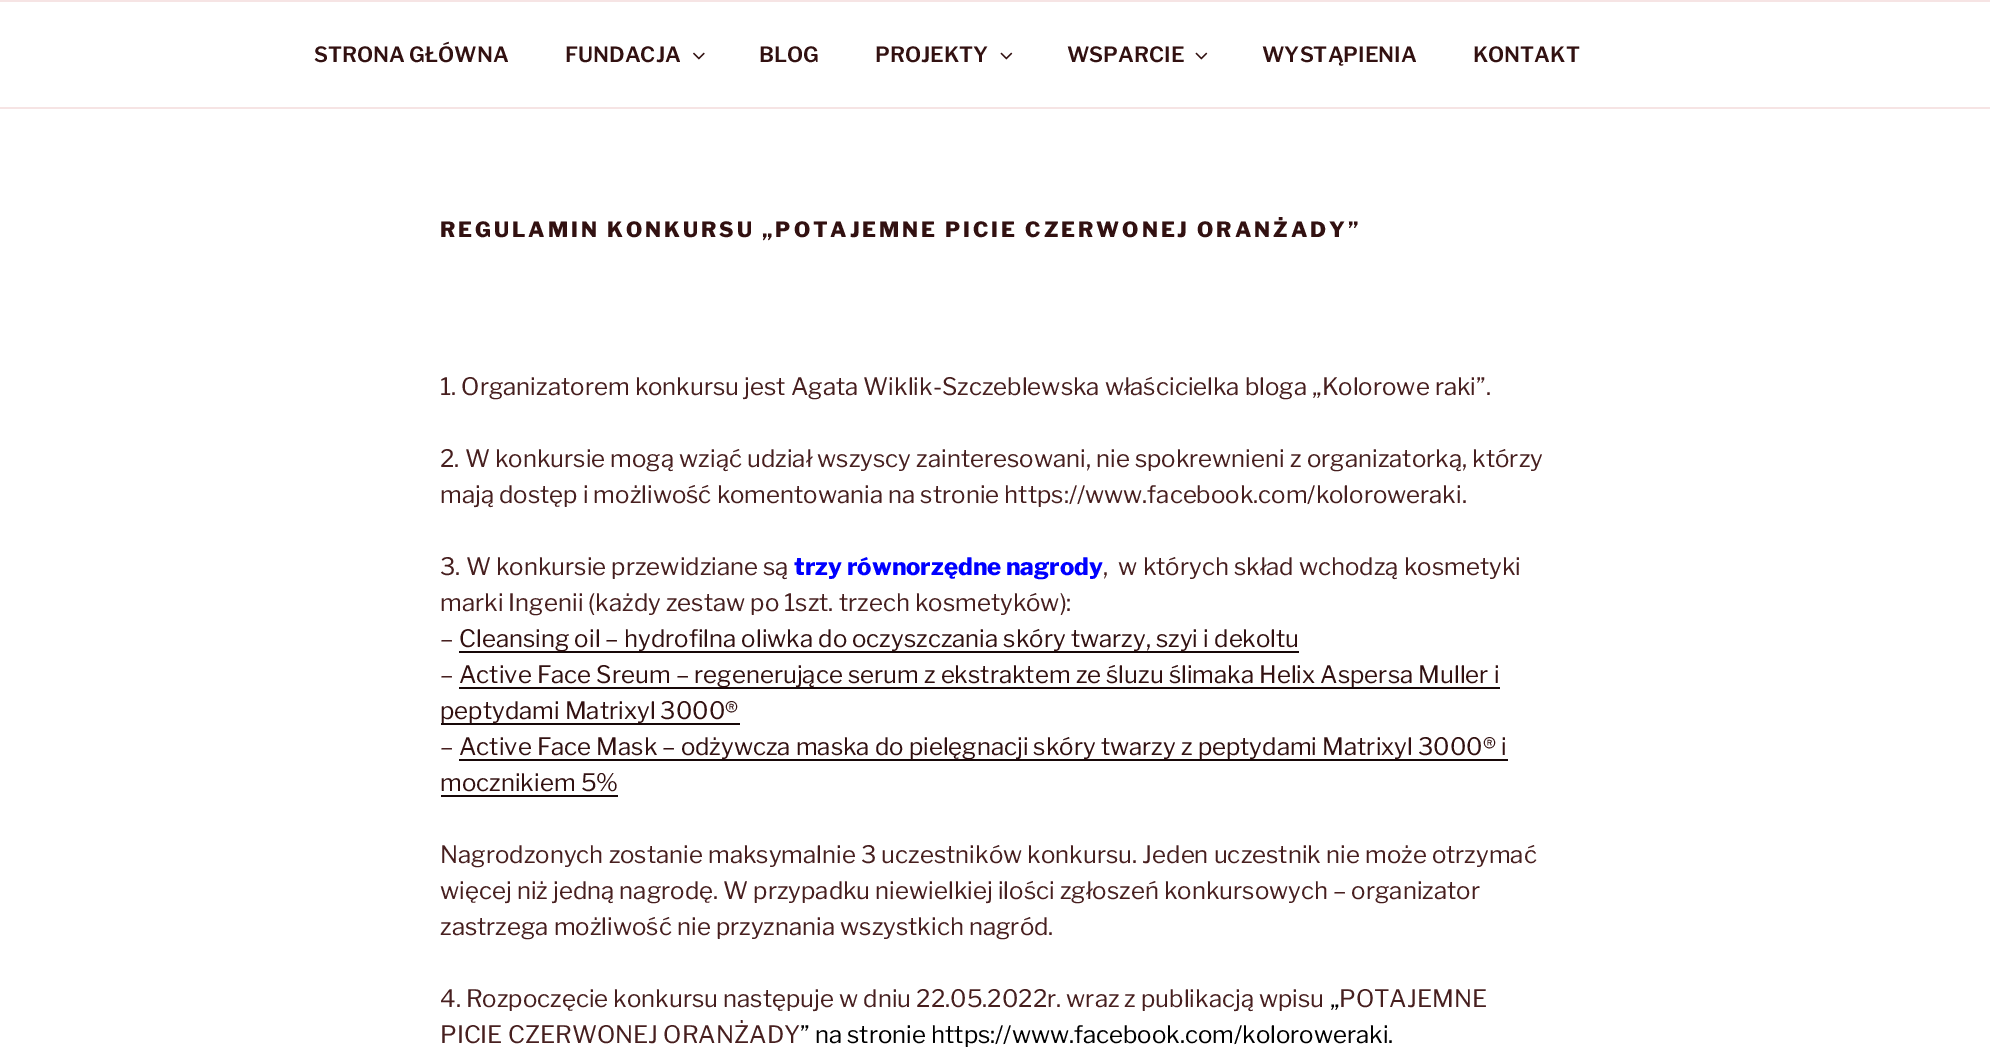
%!PS
<< /PageSize [1990 1062] >> setpagedevice
/rgb { dup -16 bitshift 255 div exch dup -8 bitshift 255 and 255 div exch 255 and 255 div setrgbcolor } def
/font { [ exch dup neg 0 0 3 -1 roll 0 0 ] selectfont } def
/text { moveto show } def
/picture { 5 dict begin { /h /w /y /x /name } { exch def } forall
  gsave x y translate w h scale
  w h 8 [w 0 0 h 0 0] name (r) file false 3 colorimage grestore end } def
0 1062 translate 1 -1 scale
4 setmiterlimit
/s1 { /LibreFranklin-SemiBold 21 font 16#321111 rgb } def
/s2 { /LibreFranklin-Regular 24 font 16#471F1F rgb } def
/s3 { /LibreFranklin-ExtraBold 24 font 16#0000FF rgb } def
/s4 { /LibreFranklin-Regular 24 font 16#321111 rgb } def
/s5 { /LibreFranklin-Regular 24 font 16#000000 rgb } def
16#FFFFFF rgb
0 0 1990 1062 rectfill
16#F6E4E4 rgb
0 0 1990 2 rectfill
0 107 1990 2 rectfill
s1
(STRONA GŁÓWNA) 314 62 text
(FUNDACJA) 565 62 text
(pic1.raw) 693 52 12 8 picture
(BLOG) 759 62 text
(PROJEKTY) 875 62 text
(pic2.raw) 1000 52 13 8 picture
(WSPARCIE) 1067 62 text
(pic2.raw) 1195 52 13 8 picture
(WYSTĄPIENIA) 1262 62 text
(KONTAKT) 1473 62 text
/LibreFranklin-ExtraBold 21 font
440 237 moveto 2.95 0 (REGULAMIN KONKURSU „POTAJEMNE PICIE CZERWONEJ ORANŻADY”) ashow
s2
(1. Organizatorem konkursu jest Agata Wiklik-Szczeblewska właścicielka bloga „Kolorowe raki”.) 440 395 text
(2. W konkursie mogą wziąć udział wszyscy zainteresowani, nie spokrewnieni z organizatorką, którzy) 440 467 text
(mają dostęp i możliwość komentowania na stronie https://www.facebook.com/koloroweraki.) 440 503 text
(3. W konkursie przewidziane są) 440 575 text
s3
(trzy równorzędne nagrody) 794 575 text
s2
(,  w których skład wchodzą kosmetyki) 1103 575 text
(marki Ingenii \(każdy zestaw po 1szt. trzech kosmetyków\):) 440 611 text
(–) 440 647 text
16#170808 rgb
459 651 840 2 rectfill
s4
(Cleansing oil – hydrofilna oliwka do oczyszczania skóry twarzy, szyi i dekoltu) 459 647 text
s2
(–) 440 683 text
16#170808 rgb
459 687 1041 2 rectfill
s4
(Active Face Sreum – regenerujące serum z ekstraktem ze śluzu ślimaka Helix Aspersa Muller i) 459 683 text
(peptydami Matrixyl 3000®) 440 719 text
16#170808 rgb
441 723 299 2 rectfill
s2
(–) 440 755 text
16#170808 rgb
459 759 1049 2 rectfill
s4
(Active Face Mask – odżywcza maska do pielęgnacji skóry twarzy z peptydami Matrixyl 3000® i) 459 755 text
(mocznikiem 5%) 440 791 text
16#170808 rgb
441 795 177 2 rectfill
s2
(Nagrodzonych zostanie maksymalnie 3 uczestników konkursu. Jeden uczestnik nie może otrzymać) 440 863 text
(więcej niż jedną nagrodę. W przypadku niewielkiej ilości zgłoszeń konkursowych – organizator) 440 899 text
(zastrzega możliwość nie przyznania wszystkich nagród.) 440 935 text
(4. Rozpoczęcie konkursu następuje w dniu 22.05.2022r. wraz z publikacją wpisu) 440 1007 text
s5
(„) 1330 1007 text
s2
(POTAJEMNE) 1339 1007 text
(PICIE CZERWONEJ ORANŻADY) 440 1043 text
s5
(” na stronie https://www.facebook.com/koloroweraki.) 800 1043 text
showpage
